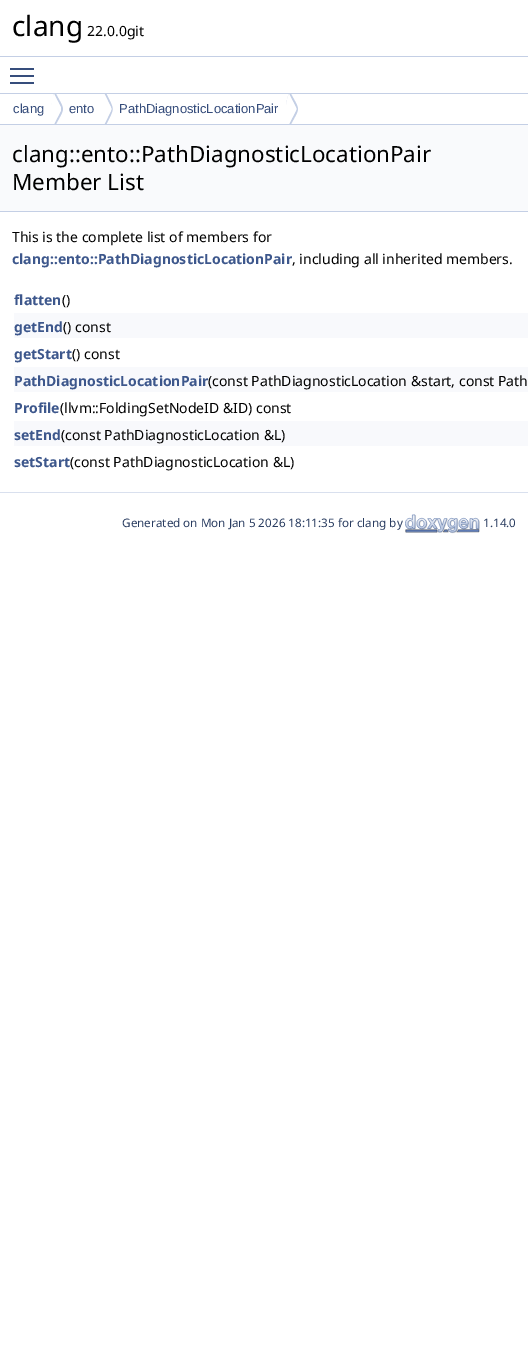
%!PS
<< /PageSize [528 1365] >> setpagedevice
/rgb { dup -16 bitshift 255 div exch dup -8 bitshift 255 and 255 div exch 255 and 255 div setrgbcolor } def
/font { [ exch dup neg 0 0 3 -1 roll 0 0 ] selectfont } def
/text { moveto show } def
/picture { 5 dict begin { /h /w /y /x /name } { exch def } forall
  gsave x y translate w h scale
  w h 8 [w 0 0 h 0 0] name (r) file false 3 colorimage grestore end } def
0 1365 translate 1 -1 scale
4 setmiterlimit
/s1 { /NotoSans-Regular 28 font 16#000000 rgb } def
/s2 { /NotoSans-Regular 14 font 16#000000 rgb } def
/s3 { /LiberationSans-Regular 13 font 16#354C7B rgb } def
/s4 { /NotoSans-Regular 22.4 font 16#000000 rgb } def
/s5 { /NotoSans-Bold 14 font 16#3D578C rgb } def
/s6 { /NotoSans-Regular 11.7 font 16#2A3D61 rgb } def
16#FFFFFF rgb
0 0 528 1365 rectfill
16#C4CFE5 rgb
0 56 528 1 rectfill
s1
(clang) 12 36 text
s2
(22.0.0git) 87 36 text
16#364D7C rgb
10 75 24 2 rectfill
10 68 24 2 rectfill
10 82 24 2 rectfill
16#C4CFE5 rgb
0 93 528 1 rectfill
0 124 528 1 rectfill
s3
(clang) 13 113 text
gsave
0 94 528 30 rectclip
16#C4CFE5 rgb
55 92 moveto 53 96 lineto 54 94 lineto 61 107.5 lineto 61 108.5 61 109.5 61 110.5 curveto 54 124 lineto 55 126 lineto 65.5 106 65.5 112 55 92 curveto closepath 51 105.5 moveto 51.5 103.5 lineto closepath eofill
grestore
16#FFFFFF rgb
54 94 moveto 61 107.5 lineto 61 108.5 61 109.5 61 110.5 curveto 54 124 lineto 50 115.5 50 102.5 54 94 curveto closepath fill
s3
(ento) 69 113 text
gsave
0 94 528 30 rectclip
16#C4CFE5 rgb
105.5 92 moveto 104.5 94 lineto 111 107.5 lineto 111.5 108.5 111.5 109.5 111 110.5 curveto 104.5 124 lineto 105.5 126 lineto 115 106 115 112 105.5 92 curveto closepath fill
grestore
16#FFFFFF rgb
104.5 94 moveto 111 107.5 lineto 111.5 108.5 111.5 109.5 111 110.5 curveto 104.5 124 lineto 100 115.5 100 102.5 104.5 94 curveto closepath fill
s3
(PathDiagnosticLocationPair) 119 113 text
gsave
0 94 528 30 rectclip
16#C4CFE5 rgb
290 92 moveto 287 97.5 286 103.5 286 110 curveto 286 104.5 287 98.5 289 94 curveto 296 107.5 lineto 296.5 108.5 296.5 109.5 296 110.5 curveto 289 124 lineto 289 123.5 lineto 290 126 lineto 300.5 106 300.5 112 290 92 curveto closepath fill
grestore
16#FFFFFF rgb
289 94 moveto 296 107.5 lineto 296.5 108.5 296.5 109.5 296 110.5 curveto 289 124 lineto 285 115.5 285 102.5 289 94 curveto closepath fill
16#F9FAFC rgb
0 125 528 86 rectfill
16#C4CFE5 rgb
0 211 528 1 rectfill
s4
(clang::ento::PathDiagnosticLocationPair) 12 162 text
(Member List) 12 190 text
s2
(This is the complete list of members for) 12 242 text
s5
(clang::ento::PathDiagnosticLocationPair) 12 264 text
s2
(, including all inherited members.) 292 264 text
s5
(flatten) 14 305 text
s2
(\(\)) 62 305 text
16#F8F9FC rgb
14 313 514 25 rectfill
s5
(getEnd) 14 332 text
s2
(\(\) const) 63 332 text
s5
(getStart) 14 359 text
s2
(\(\) const) 72 359 text
16#F8F9FC rgb
14 367 514 25 rectfill
s5
(PathDiagnosticLocationPair) 14 386 text
s2
(\(const PathDiagnosticLocation &start, const Path) 208 386 text
s5
(Profile) 14 413 text
s2
(\(llvm::FoldingSetNodeID &ID\) const) 60 413 text
16#F8F9FC rgb
14 421 514 25 rectfill
s5
(setEnd) 14 440 text
s2
(\(const PathDiagnosticLocation &L\)) 61 440 text
s5
(setStart) 14 467 text
s2
(\(const PathDiagnosticLocation &L\)) 70 467 text
16#D9E0EE rgb
0 492 528 1 rectfill
s6
(Generated on Mon Jan 5 2026 18:11:35 for clang by) 122 527 text
(pic1.raw) 405 514 75 20 picture
(1.14.0) 483 527 text
showpage
